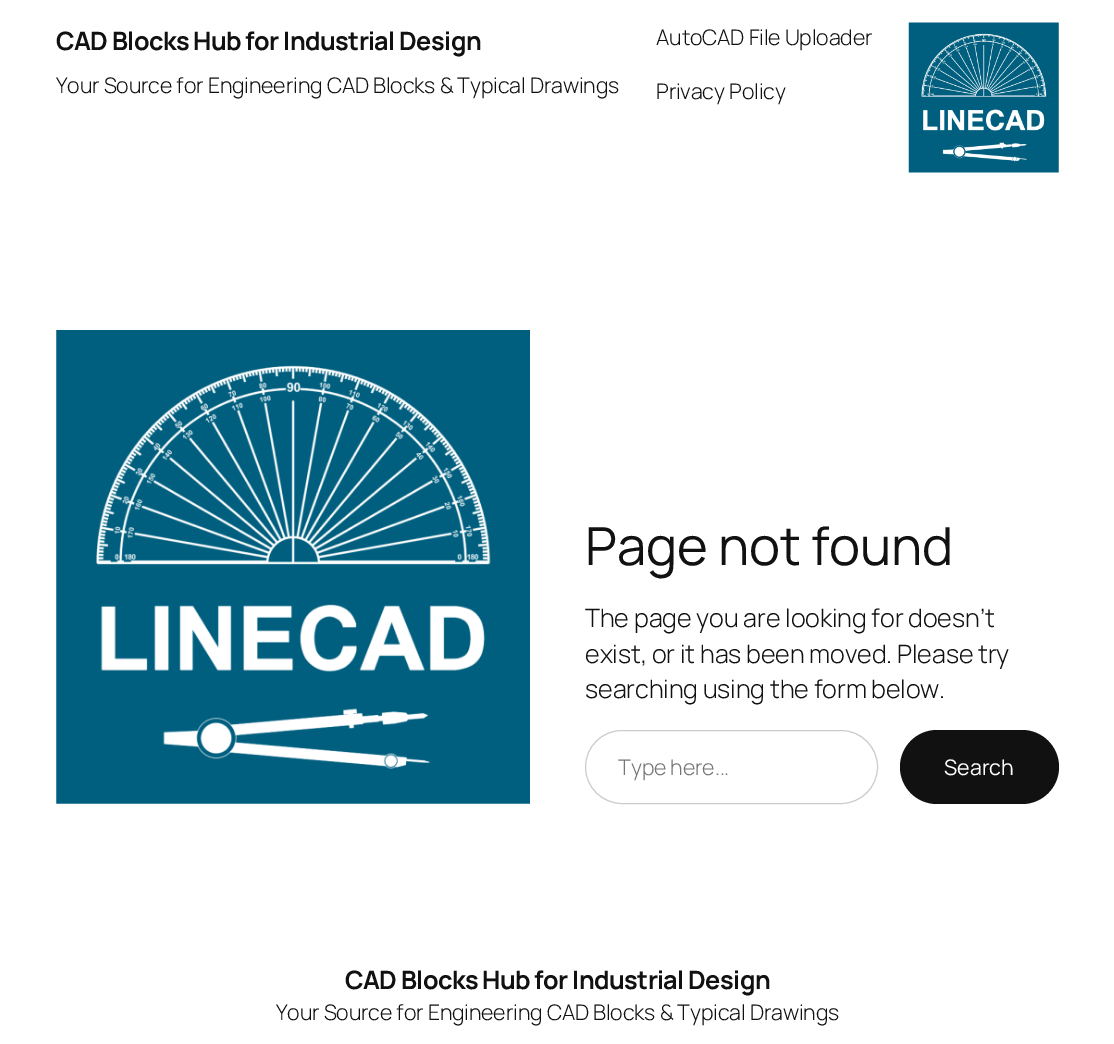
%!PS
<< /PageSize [1114 1044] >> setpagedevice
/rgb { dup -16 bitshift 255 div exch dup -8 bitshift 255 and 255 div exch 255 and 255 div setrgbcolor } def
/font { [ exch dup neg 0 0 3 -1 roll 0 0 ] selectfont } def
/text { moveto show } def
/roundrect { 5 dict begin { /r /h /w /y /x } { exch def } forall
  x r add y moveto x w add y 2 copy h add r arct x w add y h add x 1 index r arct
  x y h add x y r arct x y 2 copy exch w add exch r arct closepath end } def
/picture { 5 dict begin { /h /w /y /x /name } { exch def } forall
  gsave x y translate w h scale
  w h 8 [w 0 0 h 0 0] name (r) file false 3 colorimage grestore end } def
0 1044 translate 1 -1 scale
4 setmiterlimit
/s1 { /Manrope-Regular 21.4 font 16#FFFFFF rgb } def
16#FFFFFF rgb
0 0 1114 1044 rectfill
/Manrope-Bold 25.25 font
16#111111 rgb
56 50 moveto -0.6 0 (CAD Blocks Hub for Industrial Design) ashow
/Manrope-Light 21.4 font
56 93 moveto -0.12 0 (Your Source for Engineering CAD Blocks & Typical Drawings) ashow
656 45 moveto -0.12 0 (AutoCAD File Uploader) ashow
656 99 moveto -0.12 0 (Privacy Policy) ashow
(pic1.raw) 908 22 151 151 picture
(pic2.raw) 56 330 474 474 picture
/Manrope-Regular 52.5 font
585 565 moveto -0.12 0 (Page not found) ashow
/Manrope-Light 25.25 font
585 627 moveto -0.12 0 (The page you are looking for doesn’t) ashow
585 663 moveto -0.12 0 (exist, or it has been moved. Please try) ashow
585 698 moveto -0.12 0 (searching using the form below.) ashow
16#CCCCCC rgb
585.5 730.5 292 73 36.5 roundrect stroke
/Manrope-Light 21.4 font
16#757575 rgb
618 775 moveto -0.12 0 (Type here...) ashow
16#111111 rgb
900 730 159 74 37 roundrect fill
s1
(Search) 944 775 text
/Manrope-Bold 25.25 font
16#111111 rgb
345 989 moveto -0.6 0 (CAD Blocks Hub for Industrial Design) ashow
/Manrope-Light 21.4 font
276 1020 moveto -0.12 0 (Your Source for Engineering CAD Blocks & Typical Drawings) ashow
showpage
